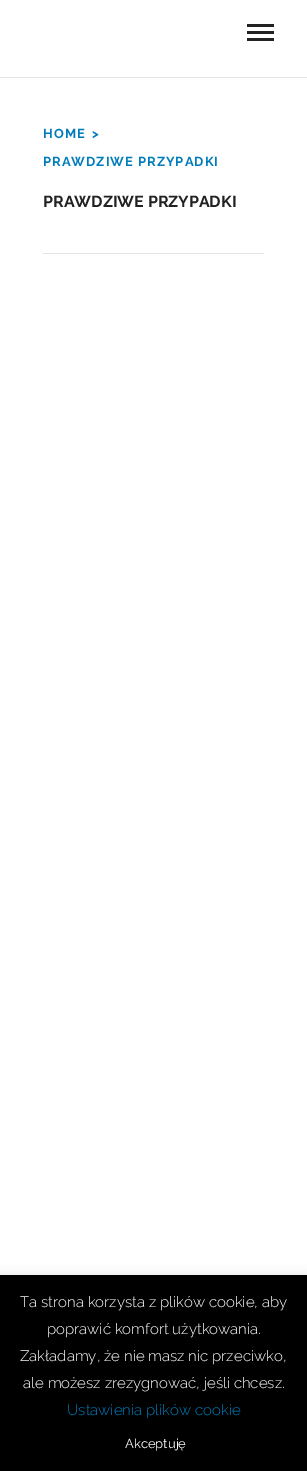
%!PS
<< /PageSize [307 1471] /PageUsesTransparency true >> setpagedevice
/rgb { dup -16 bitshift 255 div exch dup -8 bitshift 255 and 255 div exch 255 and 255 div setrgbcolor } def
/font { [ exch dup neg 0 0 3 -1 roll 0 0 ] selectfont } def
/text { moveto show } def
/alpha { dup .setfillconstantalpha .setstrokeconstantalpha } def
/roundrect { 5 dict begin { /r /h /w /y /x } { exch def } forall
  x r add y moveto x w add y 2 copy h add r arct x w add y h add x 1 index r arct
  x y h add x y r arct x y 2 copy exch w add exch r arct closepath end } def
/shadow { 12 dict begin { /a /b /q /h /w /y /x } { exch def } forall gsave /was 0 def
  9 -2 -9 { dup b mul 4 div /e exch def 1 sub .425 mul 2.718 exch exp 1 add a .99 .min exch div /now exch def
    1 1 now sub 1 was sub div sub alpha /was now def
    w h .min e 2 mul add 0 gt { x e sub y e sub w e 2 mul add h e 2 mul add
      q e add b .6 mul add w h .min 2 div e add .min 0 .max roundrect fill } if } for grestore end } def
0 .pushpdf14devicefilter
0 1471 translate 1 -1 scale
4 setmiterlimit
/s1 { /Raleway-Bold 16 font 16#222222 rgb } def
/s2 { /Raleway-Light 15 font 16#FFFFFF rgb } def
/s3 { /Raleway-Light 15 font 16#007CBA rgb } def
/s4 { /Raleway-Regular 13 font 16#FFFFFF rgb } def
16#FFFFFF rgb
0 0 307 1471 rectfill
16#E4E4E4 rgb
0 77 307 1 rectfill
16#222222 rgb
247 24 27 3 rectfill
247 31 27 3 rectfill
247 38 27 3 rectfill
16#E4E4E4 rgb
43 253 221 1 rectfill
/Raleway-Bold 13 font
16#007CBA rgb
43 138 moveto 1 0 (HOME) ashow
92 138 moveto 1 0 (>) ashow
43 166 moveto 1 0 (PRAWDZIWE PRZYPADKI) ashow
s1
(PRAWDZIWE PRZYPADKI) 43 207 text
16#ACABAB rgb
0 1274 307 196 0 5 0.3 shadow
16#000000 rgb
0 1275 307 196 rectfill
s2
(Ta strona korzysta z plików cookie, aby) 20 1307 text
(poprawić komfort użytkowania.) 47 1334 text
(Zakładamy, że nie masz nic przeciwko,) 20 1361 text
(ale możesz zrezygnować, jeśli chcesz.) 23 1388 text
s3
(Ustawienia plików cookie) 67 1415 text
s4
(Akceptuję) 125 1448 text
.poppdf14devicefilter showpage
